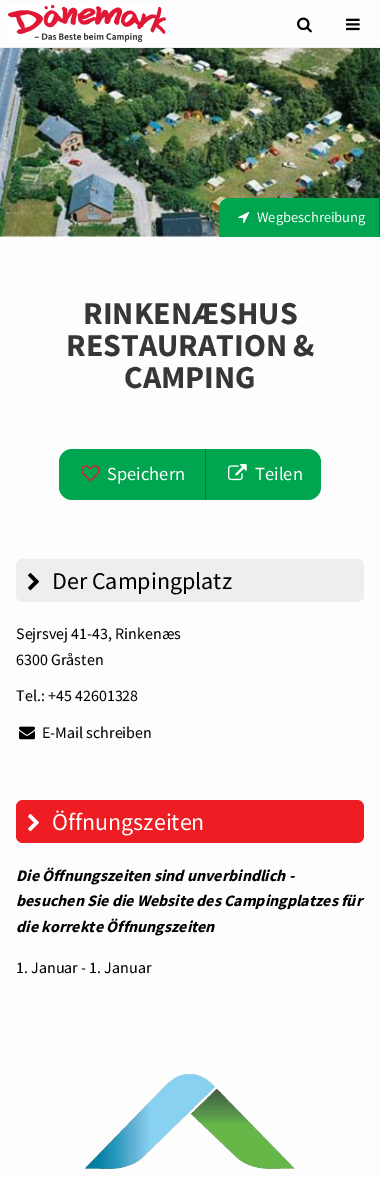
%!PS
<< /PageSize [380 1177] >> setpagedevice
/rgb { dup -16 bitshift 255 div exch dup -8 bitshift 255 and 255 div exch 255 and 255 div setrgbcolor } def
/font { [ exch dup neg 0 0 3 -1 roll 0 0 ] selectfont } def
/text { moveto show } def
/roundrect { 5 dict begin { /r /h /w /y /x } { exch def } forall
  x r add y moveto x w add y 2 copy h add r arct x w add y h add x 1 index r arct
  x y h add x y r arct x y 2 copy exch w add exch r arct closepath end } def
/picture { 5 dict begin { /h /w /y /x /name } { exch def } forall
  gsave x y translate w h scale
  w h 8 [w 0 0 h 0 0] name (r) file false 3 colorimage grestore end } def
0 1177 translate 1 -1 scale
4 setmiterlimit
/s1 { /SourceSansPro-Regular 14.5 font 16#FFFFFF rgb } def
/s2 { /SourceSansPro-Bold 32 font 16#363636 rgb } def
/s3 { /SourceSansPro-Regular 18.5 font 16#FFFFFF rgb } def
/s4 { /SourceSansPro-Regular 24 font 16#000000 rgb } def
/s5 { /SourceSansPro-Regular 16 font 16#000000 rgb } def
/s6 { /SourceSansPro-Regular 24 font 16#FFFFFF rgb } def
/s7 { /SourceSansPro-BoldItalic 16 font 16#000000 rgb } def
16#FDFDFD rgb
0 0 380 1177 rectfill
16#F2F2F2 rgb
0 47 380 1 rectfill
(pic1.raw) 8 5 158 37 picture
(pic2.raw) 297 17 15 16 picture
(pic3.raw) 346 18 14 13 picture
(pic4.raw) 0 48 380 189 picture
16#00A54F rgb
229 198 moveto 380 198 lineto 380 237 lineto 219 237 lineto 219 208 lineto 219 202.5 223.5 198 229 198 curveto closepath fill
16#007C3B rgb
379 198 1 39 rectfill
(pic5.raw) 238 211 12 13 picture
s1
(Wegbeschreibung) 257 222 text
s2
(RINKENÆSHUS) 83 324 text
(RESTAURATION &) 66 356 text
(CAMPING) 124 388 text
16#00A54F rgb
72 449 moveto 206 449 lineto 206 500 lineto 72 500 lineto 65 500 59 494 59 487 curveto 59 462 lineto 59 455 65 449 72 449 curveto closepath fill
16#007C3B rgb
205 449 1 51 rectfill
(pic6.raw) 81 465 19 17 picture
s3
(Speichern) 107 480 text
16#00A54F rgb
206 449 moveto 308 449 lineto 315 449 321 455 321 462 curveto 321 487 lineto 321 494 315 500 308 500 curveto 206 500 lineto closepath fill
(pic7.raw) 228 464 19 17 picture
s3
(Teilen) 255 480 text
16#EEEEEE rgb
16 559 348 43 7 roundrect fill
(pic8.raw) 28 573 11 18 picture
s4
(Der Campingplatz) 52 589 text
s5
(Sejrsvej 41-43, Rinkenæs) 16 639 text
(6300 Gråsten) 16 665 text
(Tel.: +45 42601328) 16 701 text
(pic9.raw) 19 726 16 14 picture
(E-Mail schreiben) 42 738 text
16#EE1D23 rgb
16 800 348 43 7 roundrect fill
(pic10.raw) 28 814 11 18 picture
s6
(Öffnungszeiten) 52 830 text
s7
(Die Öffnungszeiten sind unverbindlich -) 16 881 text
(besuchen Sie die Website des Campingplatzes für) 16 906 text
(die korrekte Öffnungszeiten) 16 932 text
s5
(1. Januar - 1. Januar) 16 973 text
(pic11.raw) 85 1074 210 95 picture
showpage
